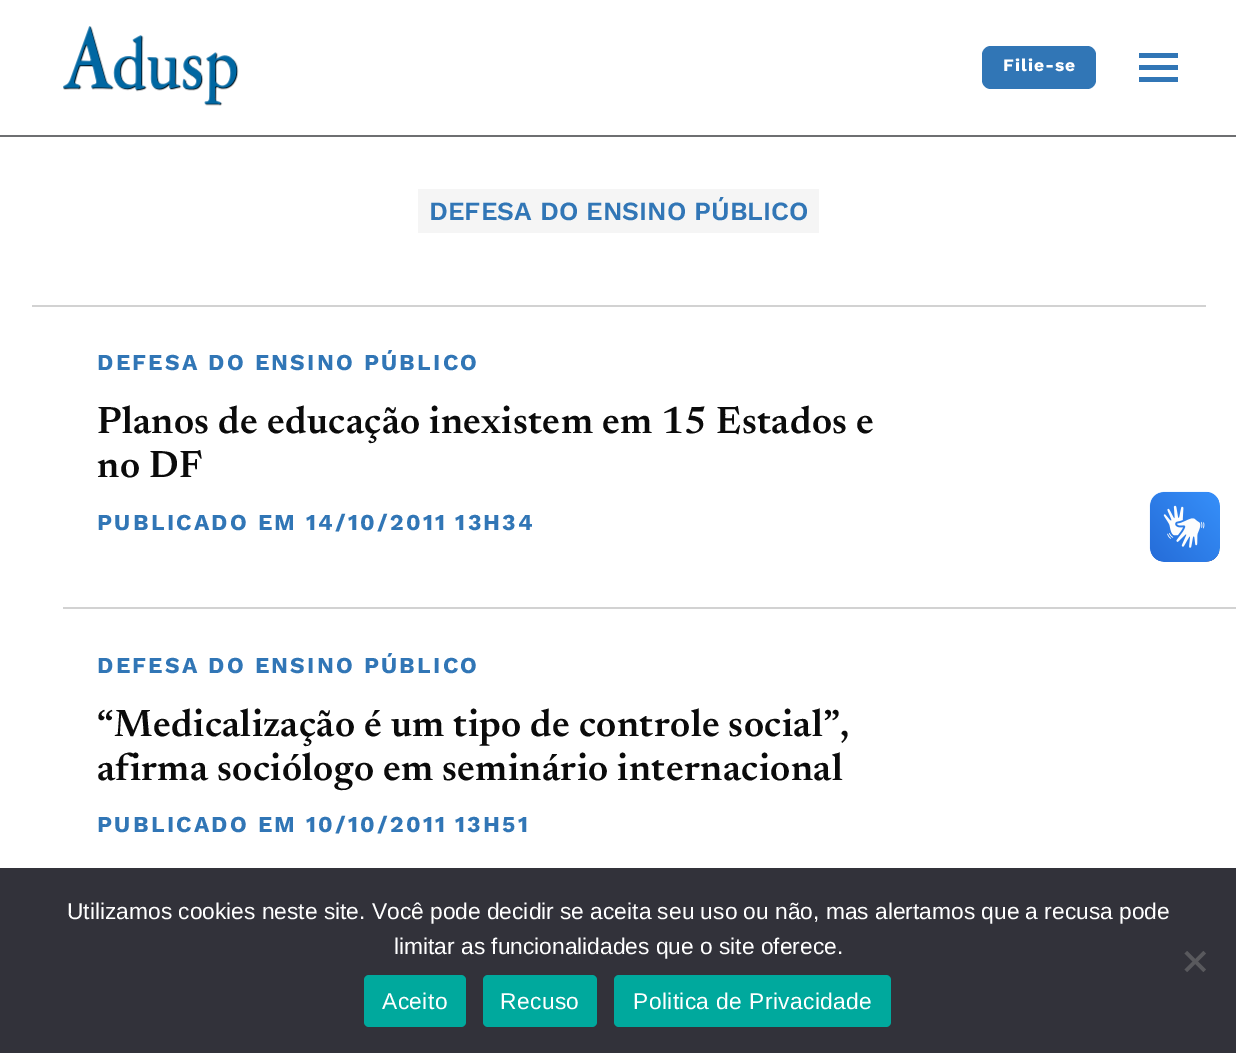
%!PS
<< /PageSize [1236 1053] >> setpagedevice
/rgb { dup -16 bitshift 255 div exch dup -8 bitshift 255 and 255 div exch 255 and 255 div setrgbcolor } def
/font { [ exch dup neg 0 0 3 -1 roll 0 0 ] selectfont } def
/text { moveto show } def
/roundrect { 5 dict begin { /r /h /w /y /x } { exch def } forall
  x r add y moveto x w add y 2 copy h add r arct x w add y h add x 1 index r arct
  x y h add x y r arct x y 2 copy exch w add exch r arct closepath end } def
/picture { 5 dict begin { /h /w /y /x /name } { exch def } forall
  gsave x y translate w h scale
  w h 8 [w 0 0 h 0 0] name (r) file false 3 colorimage grestore end } def
0 1053 translate 1 -1 scale
4 setmiterlimit
/s1 { /WorkSans-SemiBold 26.25 font 16#3176B6 rgb } def
/s2 { /LiberationSans-Regular 22.75 font 16#FFFFFF rgb } def
16#FFFFFF rgb
0 0 1236 1053 rectfill
16#6E6F71 rgb
0 135 1236 2 rectfill
(pic1.raw) 63 26 176 80 picture
16#3176B6 rgb
982 46 114 43 9 roundrect fill
/WorkSans-Bold 17.5 font
16#FFFFFF rgb
1003 71 moveto 1 0 (Filie-se) ashow
16#3176B6 rgb
1139 65 39 5 rectfill
1139 53 39 5 rectfill
1139 77 39 5 rectfill
16#D2D2D2 rgb
32 305 1174 2 rectfill
16#F5F5F5 rgb
418 189 401 44 rectfill
s1
(DEFESA DO ENSINO PÚBLICO) 429 220 text
16#D2D2D2 rgb
63 607 1173 2 rectfill
/WorkSans-Bold 22.75 font
16#3176B6 rgb
97 370 moveto 2.25 0 (DEFESA DO ENSINO PÚBLICO) ashow
/Newsreader-SemiBold 38.5 font
16#0B0B0B rgb
97 433 moveto 0.4 0 (Planos de educação inexistem em 15 Estados e) ashow
97 477 moveto 0.4 0 (no DF) ashow
/WorkSans-Bold 22.75 font
16#3176B6 rgb
97 530 moveto 2.25 0 (PUBLICADO EM 14/10/2011 13H34) ashow
97 673 moveto 2.25 0 (DEFESA DO ENSINO PÚBLICO) ashow
/Newsreader-SemiBold 38.5 font
16#0B0B0B rgb
97 736 moveto 0.4 0 (“Medicalização é um tipo de controle social”,) ashow
97 780 moveto 0.4 0 (afirma sociólogo em seminário internacional) ashow
/WorkSans-Bold 22.75 font
16#3176B6 rgb
97 832 moveto 2.25 0 (PUBLICADO EM 10/10/2011 13H51) ashow
(pic2.raw) 1149 491 71 71 picture
(pic3.raw) 1150 492 70 70 picture
16#32323A rgb
0 868 1236 185 rectfill
s2
(Utilizamos cookies neste site. Você pode decidir se aceita seu uso ou não, mas alertamos que a recusa pode) 67 919 text
(limitar as funcionalidades que o site oferece.) 394 954 text
16#59595D rgb
1203.5 951 moveto 1206 953.5 lineto 1187 972 lineto 1184.5 969.5 lineto closepath fill
1184.5 953.5 moveto 1187 951 lineto 1206 969.5 lineto 1203.5 972 lineto closepath fill
16#00A99D rgb
364 975 102 52 5 roundrect fill
16#FFFFFF rgb
382 1009 moveto 0.4 0 (Aceito) ashow
16#00A99D rgb
483 975 114 52 5 roundrect fill
16#FFFFFF rgb
500 1009 moveto 0.4 0 (Recuso) ashow
16#00A99D rgb
614 975 277 52 5 roundrect fill
16#FFFFFF rgb
633 1009 moveto 0.4 0 (Politica de Privacidade) ashow
showpage
